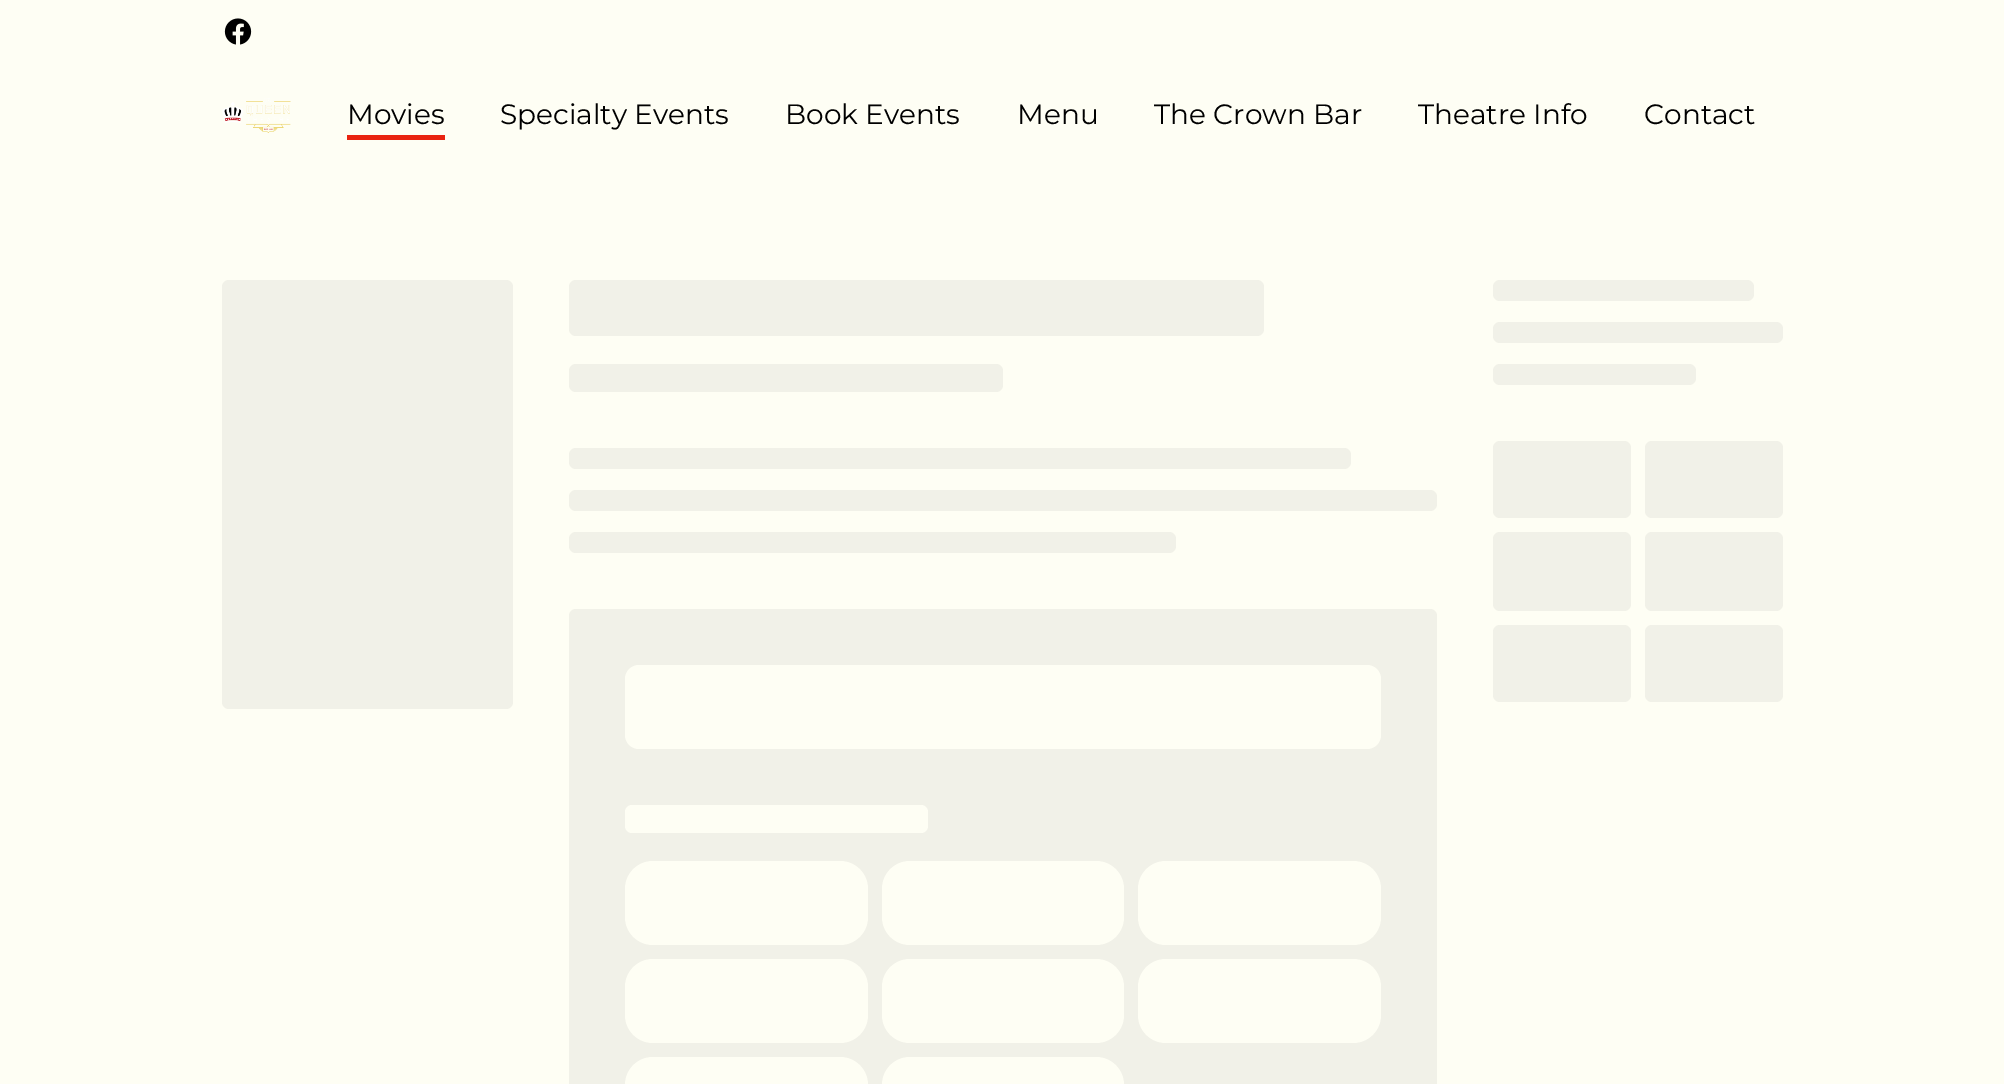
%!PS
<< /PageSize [2004 1084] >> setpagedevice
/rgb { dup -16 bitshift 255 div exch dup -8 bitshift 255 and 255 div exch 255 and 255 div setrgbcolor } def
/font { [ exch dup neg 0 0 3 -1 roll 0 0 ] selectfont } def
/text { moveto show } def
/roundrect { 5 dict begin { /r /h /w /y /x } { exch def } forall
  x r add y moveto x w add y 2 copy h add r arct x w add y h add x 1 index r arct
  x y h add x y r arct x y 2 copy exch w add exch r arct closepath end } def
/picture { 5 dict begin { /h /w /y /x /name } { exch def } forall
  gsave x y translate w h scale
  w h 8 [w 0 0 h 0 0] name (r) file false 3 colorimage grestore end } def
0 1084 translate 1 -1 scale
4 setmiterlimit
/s1 { /Montserrat-Thin 28 font 16#000000 rgb } def
16#FEFEF4 rgb
0 0 2004 1084 rectfill
(pic1.raw) 224 18 28 27 picture
(pic2.raw) 222 98 69 35 picture
s1
(Movies) 347 124 text
16#E92310 rgb
347 135 98 5 rectfill
s1
(Specialty Events) 500 124 text
(Book Events) 785 124 text
(Menu) 1017 124 text
(The Crown Bar) 1154 124 text
(Theatre Info) 1418 124 text
(Contact) 1644 124 text
16#F1F1E8 rgb
222 280 291 429 7 roundrect fill
569 280 695 56 7 roundrect fill
569 364 434 28 7 roundrect fill
1493 280 261 21 7 roundrect fill
1493 322 290 21 7 roundrect fill
1493 364 203 21 7 roundrect fill
1493 441 138 77 7 roundrect fill
1645 441 138 77 7 roundrect fill
1493 532 138 79 7 roundrect fill
1645 532 138 79 7 roundrect fill
1493 625 138 77 7 roundrect fill
1645 625 138 77 7 roundrect fill
569 448 782 21 7 roundrect fill
569 490 868 21 7 roundrect fill
569 532 607 21 7 roundrect fill
569 609 868 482 7 roundrect fill
16#FEFEF4 rgb
625 665 756 84 14 roundrect fill
625 805 303 28 7 roundrect fill
625 861 243 84 28 roundrect fill
882 861 242 84 28 roundrect fill
1138 861 243 84 28 roundrect fill
625 959 243 84 28 roundrect fill
882 959 242 84 28 roundrect fill
1138 959 243 84 28 roundrect fill
625 1057 243 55 28 roundrect fill
882 1057 242 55 28 roundrect fill
showpage
